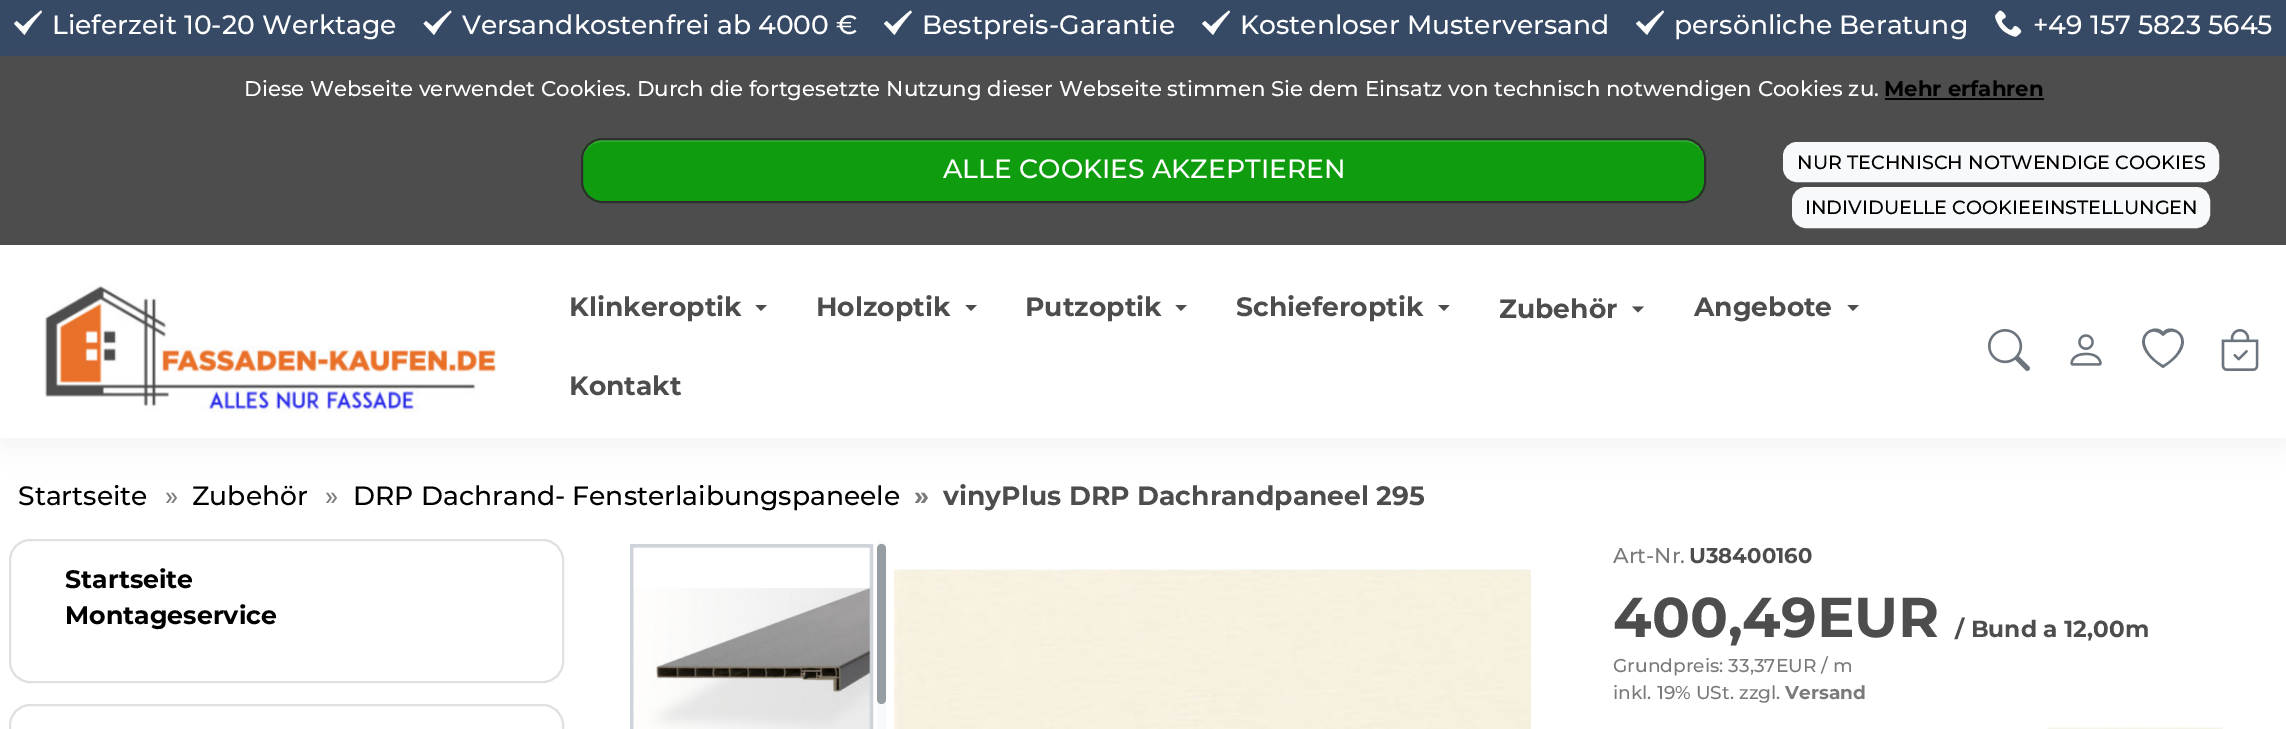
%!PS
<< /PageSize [2286 729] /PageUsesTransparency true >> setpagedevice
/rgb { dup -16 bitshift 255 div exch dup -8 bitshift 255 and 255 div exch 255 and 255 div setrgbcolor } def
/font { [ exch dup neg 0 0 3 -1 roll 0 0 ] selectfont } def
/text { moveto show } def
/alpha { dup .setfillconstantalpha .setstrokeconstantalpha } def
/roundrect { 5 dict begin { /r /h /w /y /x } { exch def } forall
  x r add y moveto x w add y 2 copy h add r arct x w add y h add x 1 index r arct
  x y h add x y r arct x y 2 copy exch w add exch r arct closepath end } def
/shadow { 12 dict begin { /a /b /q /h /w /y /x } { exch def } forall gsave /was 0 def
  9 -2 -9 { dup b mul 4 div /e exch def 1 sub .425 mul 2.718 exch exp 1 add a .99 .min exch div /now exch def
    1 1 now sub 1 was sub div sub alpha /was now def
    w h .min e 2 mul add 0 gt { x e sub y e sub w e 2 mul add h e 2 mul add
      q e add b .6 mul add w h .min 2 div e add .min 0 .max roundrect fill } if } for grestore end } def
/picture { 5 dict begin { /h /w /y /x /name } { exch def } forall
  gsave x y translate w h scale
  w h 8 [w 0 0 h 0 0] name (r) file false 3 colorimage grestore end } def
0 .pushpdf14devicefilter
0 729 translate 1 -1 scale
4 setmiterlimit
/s1 { /Montserrat-Medium 26.6 font 16#FFFFFF rgb } def
/s2 { /Montserrat-Medium 21.28 font 16#FFFFFF rgb } def
/s3 { /Montserrat-Bold 21.28 font 16#000000 rgb } def
/s4 { /Montserrat-Medium 19.15 font 16#000000 rgb } def
/s5 { /Montserrat-Bold 26.6 font 16#4D4D4D rgb } def
/s6 { /Montserrat-Medium 26.6 font 16#000000 rgb } def
/s7 { /Montserrat-Medium 26.6 font 16#7A7A7A rgb } def
/s8 { /Montserrat-Bold 26.6 font 16#7A7A7A rgb } def
/s9 { /Montserrat-Bold 25.25 font 16#000000 rgb } def
/s10 { /Montserrat-Medium 21.28 font 16#7A7A7A rgb } def
/s11 { /Montserrat-Bold 21.28 font 16#4D4D4D rgb } def
/s12 { /Montserrat-Bold 56 font 16#4D4D4D rgb } def
/s13 { /Montserrat-Bold 23.25 font 16#4D4D4D rgb } def
/s14 { /Montserrat-Medium 18.6 font 16#7A7A7A rgb } def
/s15 { /Montserrat-Bold 18.6 font 16#7A7A7A rgb } def
16#FFFFFF rgb
0 0 2286 729 rectfill
16#374A65 rgb
0 0 2286 56 rectfill
16#FFFFFF rgb
41 10.5 moveto 34.5 15.5 28.5 21 23 26.5 curveto 16.5 21 lineto 14 23.5 lineto 24.5 35 lineto 29.5 26.5 35.5 19 42 12 curveto closepath fill
s1
(Lieferzeit 10-20 Werktage) 52 34 text
450.5 10.5 moveto 444 15.5 438 21 432.5 26.5 curveto 426 21 lineto 423.5 23.5 lineto 434 35 lineto 439 26.5 445 19 451.5 12 curveto closepath fill
(Versandkostenfrei ab 4000 €) 462 34 text
910.5 10.5 moveto 904 15.5 898.5 21 892.5 26.5 curveto 886.5 21 lineto 884 23.5 lineto 894.5 35 lineto 899.5 26.5 905.5 19 912 12 curveto closepath fill
(Bestpreis-Garantie) 922 34 text
1229 10.5 moveto 1222.5 15.5 1217 21 1211 26.5 curveto 1205 21 lineto 1202 23.5 lineto 1213 35 lineto 1218 26.5 1224 19 1230 12 curveto closepath fill
(Kostenloser Musterversand) 1240 34 text
1663 10.5 moveto 1656.5 15.5 1651 21 1645 26.5 curveto 1639 21 lineto 1636 23.5 lineto 1647 35 lineto 1652 26.5 1658 19 1664 12 curveto closepath fill
(persönliche Beratung) 1674 34 text
(pic1.raw) 1995 10 27 27 picture
(+49 157 5823 5645) 2033 34 text
16#000000 rgb
2 65 2284 378 0 17.5 0.05 shadow
16#FFFFFF rgb
0 245 2286 193 rectfill
16#4D4D4D rgb
0 56 2286 189 rectfill
s2
(Diese Webseite verwendet Cookies. Durch die fortgesetzte Nutzung dieser Webseite stimmen Sie dem Einsatz von technisch notwendigen Cookies zu.) 244 96 text
s3
(Mehr erfahren) 1884 96 text
1885 98 159 2 rectfill
16#0F9C0F rgb
581 138 1125 65 21 roundrect fill
16#33AB33 rgb
602 142 moveto 1685 142 lineto 1696 142 1704 150 1704 161 curveto 1704 184 lineto 1704 187 1703 189 1702 192 curveto 1704 189 1705 185 1705 182 curveto 1705 159 lineto 1705 149 1696 140 1686 140 curveto 602 140 lineto 592 140 583 149 583 159 curveto 583 161 lineto 583 150 591 142 602 142 curveto closepath fill
16#2E2E2E rgb
2 setlinewidth
582 139 1123 63 20 roundrect stroke
s1
(ALLE COOKIES AKZEPTIEREN) 943 178 text
16#F8F9FA rgb
1784 143 434 38 13 roundrect gsave fill grestore
stroke
s4
(NUR TECHNISCH NOTWENDIGE COOKIES) 1797 169 text
16#F8F9FA rgb
1793 188 416 39 13 roundrect gsave fill grestore
stroke
s4
(INDIVIDUELLE COOKIEEINSTELLUNGEN) 1805 214 text
(pic2.raw) 44 285 452 128 picture
s5
(Klinkeroptik) 569 316 text
755.5 305 moveto 761 311 lineto 767 305 lineto closepath fill
(Holzoptik) 816 316 text
965.5 305 moveto 971 311 lineto 977 305 lineto closepath fill
(Putzoptik) 1025 316 text
1175.5 305 moveto 1181 311 lineto 1187 305 lineto closepath fill
(Schieferoptik) 1236 316 text
1438 305 moveto 1444 311 lineto 1449.5 305 lineto closepath fill
(Zubehör) 1499 318 text
1632 306.5 moveto 1638 312.5 lineto 1644 306.5 lineto closepath fill
(Angebote) 1694 316 text
1847.5 305 moveto 1853 311 lineto 1859 305 lineto closepath fill
(Kontakt) 569 395 text
(pic3.raw) 1987 329 43 42 picture
(pic4.raw) 2070 334 32 32 picture
16#6C757D rgb
2163 336 moveto 2159 333 lineto 2149 328 2142 338 2146 347 curveto 2149 355 2156 361 2163 365 curveto 2170 361 2177 355 2180 347 curveto 2184 338 2177 328 2167 333 curveto closepath 2163 368 moveto 2121 341 2154 320 2163 332 curveto 2172 320 2205 341 2163 368 curveto closepath fill
(pic5.raw) 2221 329 38 42 picture
s6
(Startseite) 18 505 text
s7
(») 165 505 text
s6
(Zubehör) 192 505 text
s7
(») 325 505 text
s6
(DRP Dachrand- Fensterlaibungspaneele) 353 505 text
s8
(») 914 505 text
s5
(vinyPlus DRP Dachrandpaneel 295) 943 505 text
16#E0E0E0 rgb
10 540 553 142 20 roundrect stroke
s9
(Startseite) 65 588 text
(Montageservice) 65 624 text
16#E0E0E0 rgb
10 705 553 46 20 roundrect stroke
16#CED4DA rgb
4 setlinewidth
632 546 239 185 rectstroke
(pic6.raw) 633 547 238 182 picture
16#F8F9FA rgb
877 541 9 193 4.5 roundrect fill
16#969DA3 rgb
877 544 9 160 4.5 roundrect fill
(pic7.raw) 894 569 637 160 picture
s10
(Art-Nr.) 1613 563 text
s11
(U38400160) 1689 563 text
s12
(400,49EUR) 1613 637 text
s13
(/ Bund a 12,00m) 1955 637 text
s14
(Grundpreis: 33,37EUR / m) 1613 672 text
(inkl. 19% USt. zzgl.) 1613 699 text
s15
(Versand) 1785 699 text
(pic8.raw) 2047 726 176 3 picture
.poppdf14devicefilter showpage
